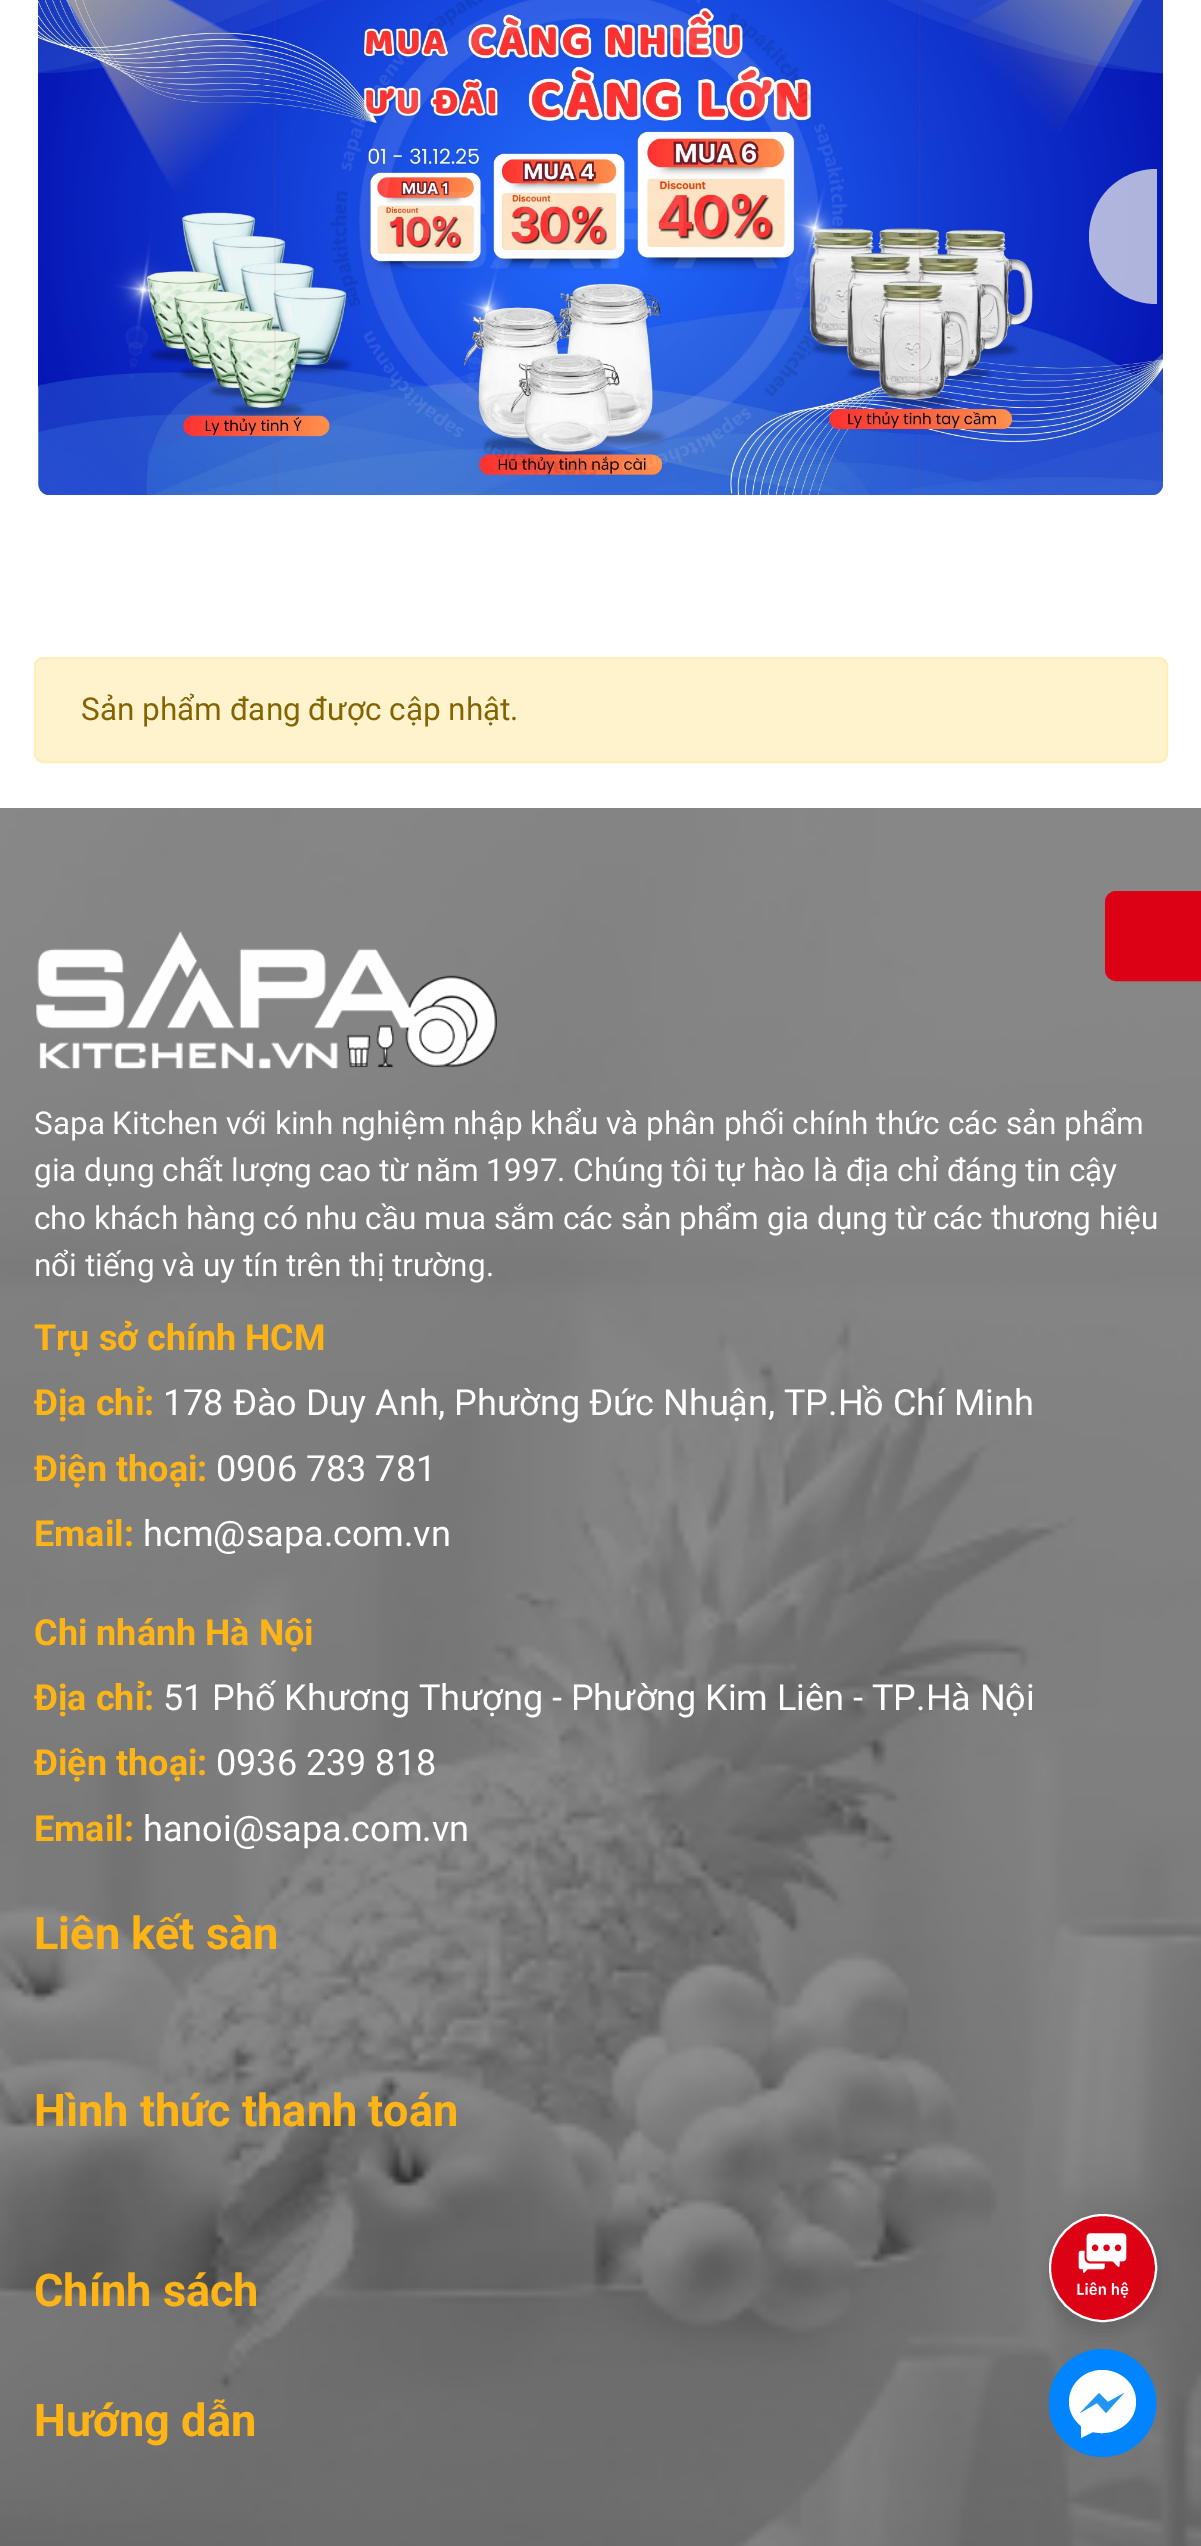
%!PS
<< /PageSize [1201 2546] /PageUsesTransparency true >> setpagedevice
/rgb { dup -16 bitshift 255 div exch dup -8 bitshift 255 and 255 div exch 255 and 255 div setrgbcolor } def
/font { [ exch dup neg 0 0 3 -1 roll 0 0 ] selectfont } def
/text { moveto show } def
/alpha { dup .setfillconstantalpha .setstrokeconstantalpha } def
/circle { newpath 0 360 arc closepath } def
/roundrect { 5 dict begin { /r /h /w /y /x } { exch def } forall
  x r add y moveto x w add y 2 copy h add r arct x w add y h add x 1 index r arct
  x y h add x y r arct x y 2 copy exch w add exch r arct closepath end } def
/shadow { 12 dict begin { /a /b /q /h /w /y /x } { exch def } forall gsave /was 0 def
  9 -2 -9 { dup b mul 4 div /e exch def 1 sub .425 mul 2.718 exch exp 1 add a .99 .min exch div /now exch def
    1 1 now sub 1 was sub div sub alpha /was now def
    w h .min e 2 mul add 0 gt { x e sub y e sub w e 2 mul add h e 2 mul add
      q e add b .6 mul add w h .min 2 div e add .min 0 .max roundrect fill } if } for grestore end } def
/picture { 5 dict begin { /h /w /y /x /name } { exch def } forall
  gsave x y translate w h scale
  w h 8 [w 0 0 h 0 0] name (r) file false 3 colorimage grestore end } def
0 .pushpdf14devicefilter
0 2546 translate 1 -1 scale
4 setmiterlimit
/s1 { /Roboto-Regular 31.5 font 16#856404 rgb } def
/s2 { /Roboto-Regular 31.5 font 16#FFFFFF rgb } def
/s3 { /Roboto-Bold 36 font 16#FFB416 rgb } def
/s4 { /Roboto-Regular 36 font 16#FFFFFF rgb } def
/s5 { /Roboto-Bold 45 font 16#FFB416 rgb } def
16#FFFFFF rgb
0 0 1201 2546 rectfill
(pic1.raw) 38 0 1125 495 picture
0.74 alpha
16#E9E9E9 rgb
1156.5 169 moveto 1157 169 lineto 1157 304 lineto 1156.5 304 lineto 1119 304 1089 274 1089 236.5 curveto 1089 199 1119 169 1156.5 169 curveto closepath fill
1 alpha
16#FFF3CD rgb
35 658 1132 104 8 roundrect gsave fill grestore
16#FFEEBA rgb
2 setlinewidth
stroke
s1
(Sản phẩm đang được cập nhật.) 81 720 text
(pic2.raw) 0 808 1201 1738 picture
16#DD0115 rgb
1116 892 moveto 1201 892 lineto 1201 980 lineto 1116 980 lineto 1110.5 980 1106 975.5 1106 970 curveto 1106 902 lineto 1106 896.5 1110.5 892 1116 892 curveto closepath gsave fill grestore
stroke
(pic3.raw) 36 931 461 138 picture
s2
(Sapa Kitchen với kinh nghiệm nhập khẩu và phân phối chính thức các sản phẩm) 34 1134 text
(gia dụng chất lượng cao từ năm 1997. Chúng tôi tự hào là địa chỉ đáng tin cậy) 34 1181 text
(cho khách hàng có nhu cầu mua sắm các sản phẩm gia dụng từ các thương hiệu) 34 1229 text
(nổi tiếng và uy tín trên thị trường.) 34 1276 text
s3
(Trụ sở chính HCM) 34 1350 text
(Địa chỉ:) 34 1415 text
s4
(178 Đào Duy Anh, Phường Đức Nhuận, TP.Hồ Chí Minh) 163 1415 text
s3
(Điện thoại:) 34 1481 text
s4
(0906 783 781) 216 1481 text
s3
(Email:) 34 1546 text
s4
(hcm@sapa.com.vn) 143 1546 text
s3
(Chi nhánh Hà Nội) 34 1645 text
(Địa chỉ:) 34 1710 text
s4
(51 Phố Khương Thượng - Phường Kim Liên - TP.Hà Nội) 163 1710 text
s3
(Điện thoại:) 34 1775 text
s4
(0936 239 818) 216 1775 text
s3
(Email:) 34 1841 text
s4
(hanoi@sapa.com.vn) 143 1841 text
s5
(Liên kết sàn) 34 1949 text
(Hình thức thanh toán) 34 2126 text
(Chính sách) 34 2306 text
(Hướng dẫn) 34 2436 text
16#000000 rgb
1049 2223 108 108 54 9 0.15 shadow
16#DD0115 rgb
1103 2268 53 circle gsave fill grestore
16#FFFFFF rgb
stroke
(pic4.raw) 1077 2233 52 65 picture
gsave
1049 2349 108 108 rectclip
16#0084FF rgb
1102.5 2403 54 circle fill
grestore
1136 2402 moveto 1136 2424 1113 2437 1093 2432 curveto 1081 2438 lineto 1081 2426 lineto 1074 2420 1069 2412 1069 2402 curveto 1069 2384 1084 2370 1102 2370 curveto 1121 2370 1136 2384 1136 2402 curveto closepath fill
16#2196F3 rgb
1124 2393 moveto 1106 2413 lineto 1097 2403 lineto 1080 2413 lineto 1099 2393 lineto 1108 2402 lineto closepath fill
.poppdf14devicefilter showpage
